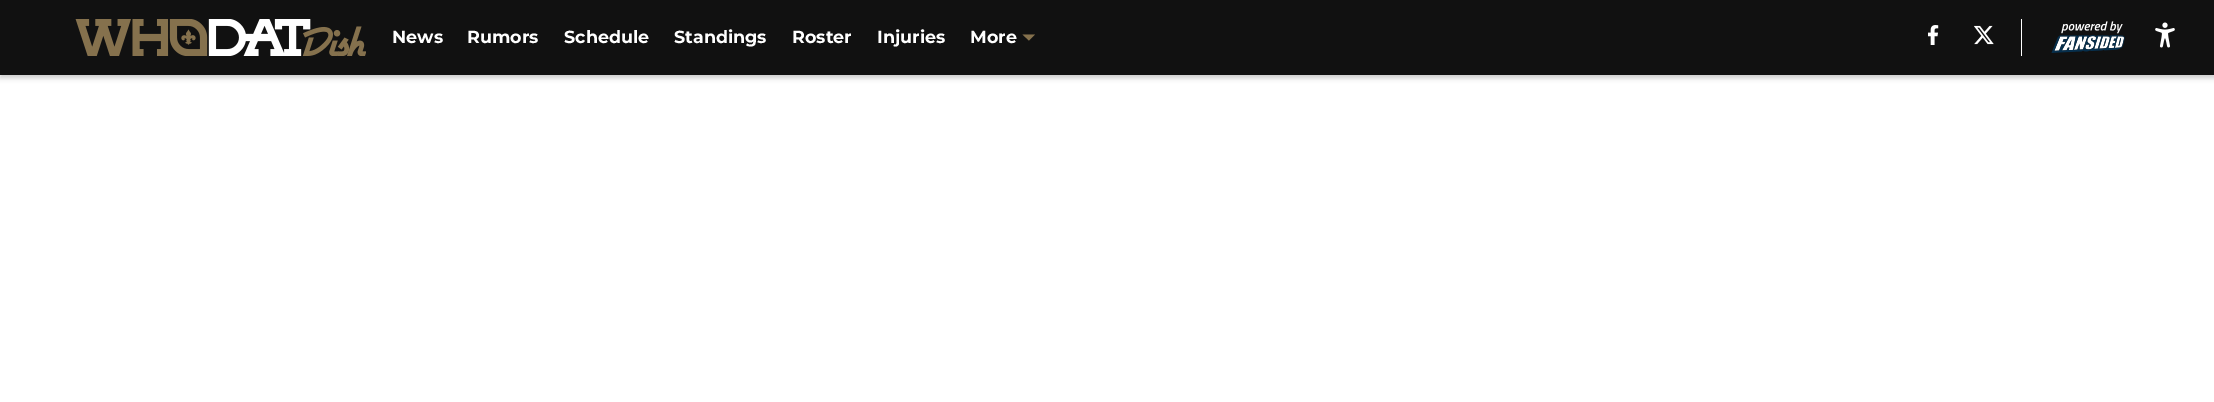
%!PS
<< /PageSize [2214 402] /PageUsesTransparency true >> setpagedevice
/rgb { dup -16 bitshift 255 div exch dup -8 bitshift 255 and 255 div exch 255 and 255 div setrgbcolor } def
/font { [ exch dup neg 0 0 3 -1 roll 0 0 ] selectfont } def
/text { moveto show } def
/alpha { dup .setfillconstantalpha .setstrokeconstantalpha } def
/roundrect { 5 dict begin { /r /h /w /y /x } { exch def } forall
  x r add y moveto x w add y 2 copy h add r arct x w add y h add x 1 index r arct
  x y h add x y r arct x y 2 copy exch w add exch r arct closepath end } def
/shadow { 12 dict begin { /a /b /q /h /w /y /x } { exch def } forall gsave /was 0 def
  9 -2 -9 { dup b mul 4 div /e exch def 1 sub .425 mul 2.718 exch exp 1 add a .99 .min exch div /now exch def
    1 1 now sub 1 was sub div sub alpha /was now def
    w h .min e 2 mul add 0 gt { x e sub y e sub w e 2 mul add h e 2 mul add
      q e add b .6 mul add w h .min 2 div e add .min 0 .max roundrect fill } if } for grestore end } def
/picture { 5 dict begin { /h /w /y /x /name } { exch def } forall
  gsave x y translate w h scale
  w h 8 [w 0 0 h 0 0] name (r) file false 3 colorimage grestore end } def
0 .pushpdf14devicefilter
0 402 translate 1 -1 scale
4 setmiterlimit
/s1 { /Montserrat-Thin 17.5 font 16#FFFFFF rgb } def
16#FFFFFF rgb
0 0 2214 402 rectfill
16#000000 rgb
0 3 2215 75 0 2.5 0.2 shadow
16#111111 rgb
0 0 2214 75 rectfill
(pic1.raw) 75 19 291 37 picture
s1
(News) 392 43 text
(Rumors) 467 43 text
(Schedule) 564 43 text
(Standings) 674 43 text
(Roster) 792 43 text
(Injuries) 877 43 text
(More) 970 43 text
16#85714D rgb
1022.5 34.5 moveto 1029 40.5 lineto 1035 34.5 lineto closepath eofill
(pic2.raw) 1928 25 11 20 picture
(pic3.raw) 1974 25 20 20 picture
16#FFFFFF rgb
2021 19 1 37 rectfill
(pic4.raw) 2051 21 74 32 picture
(pic5.raw) 2155 22 20 26 picture
.poppdf14devicefilter showpage
